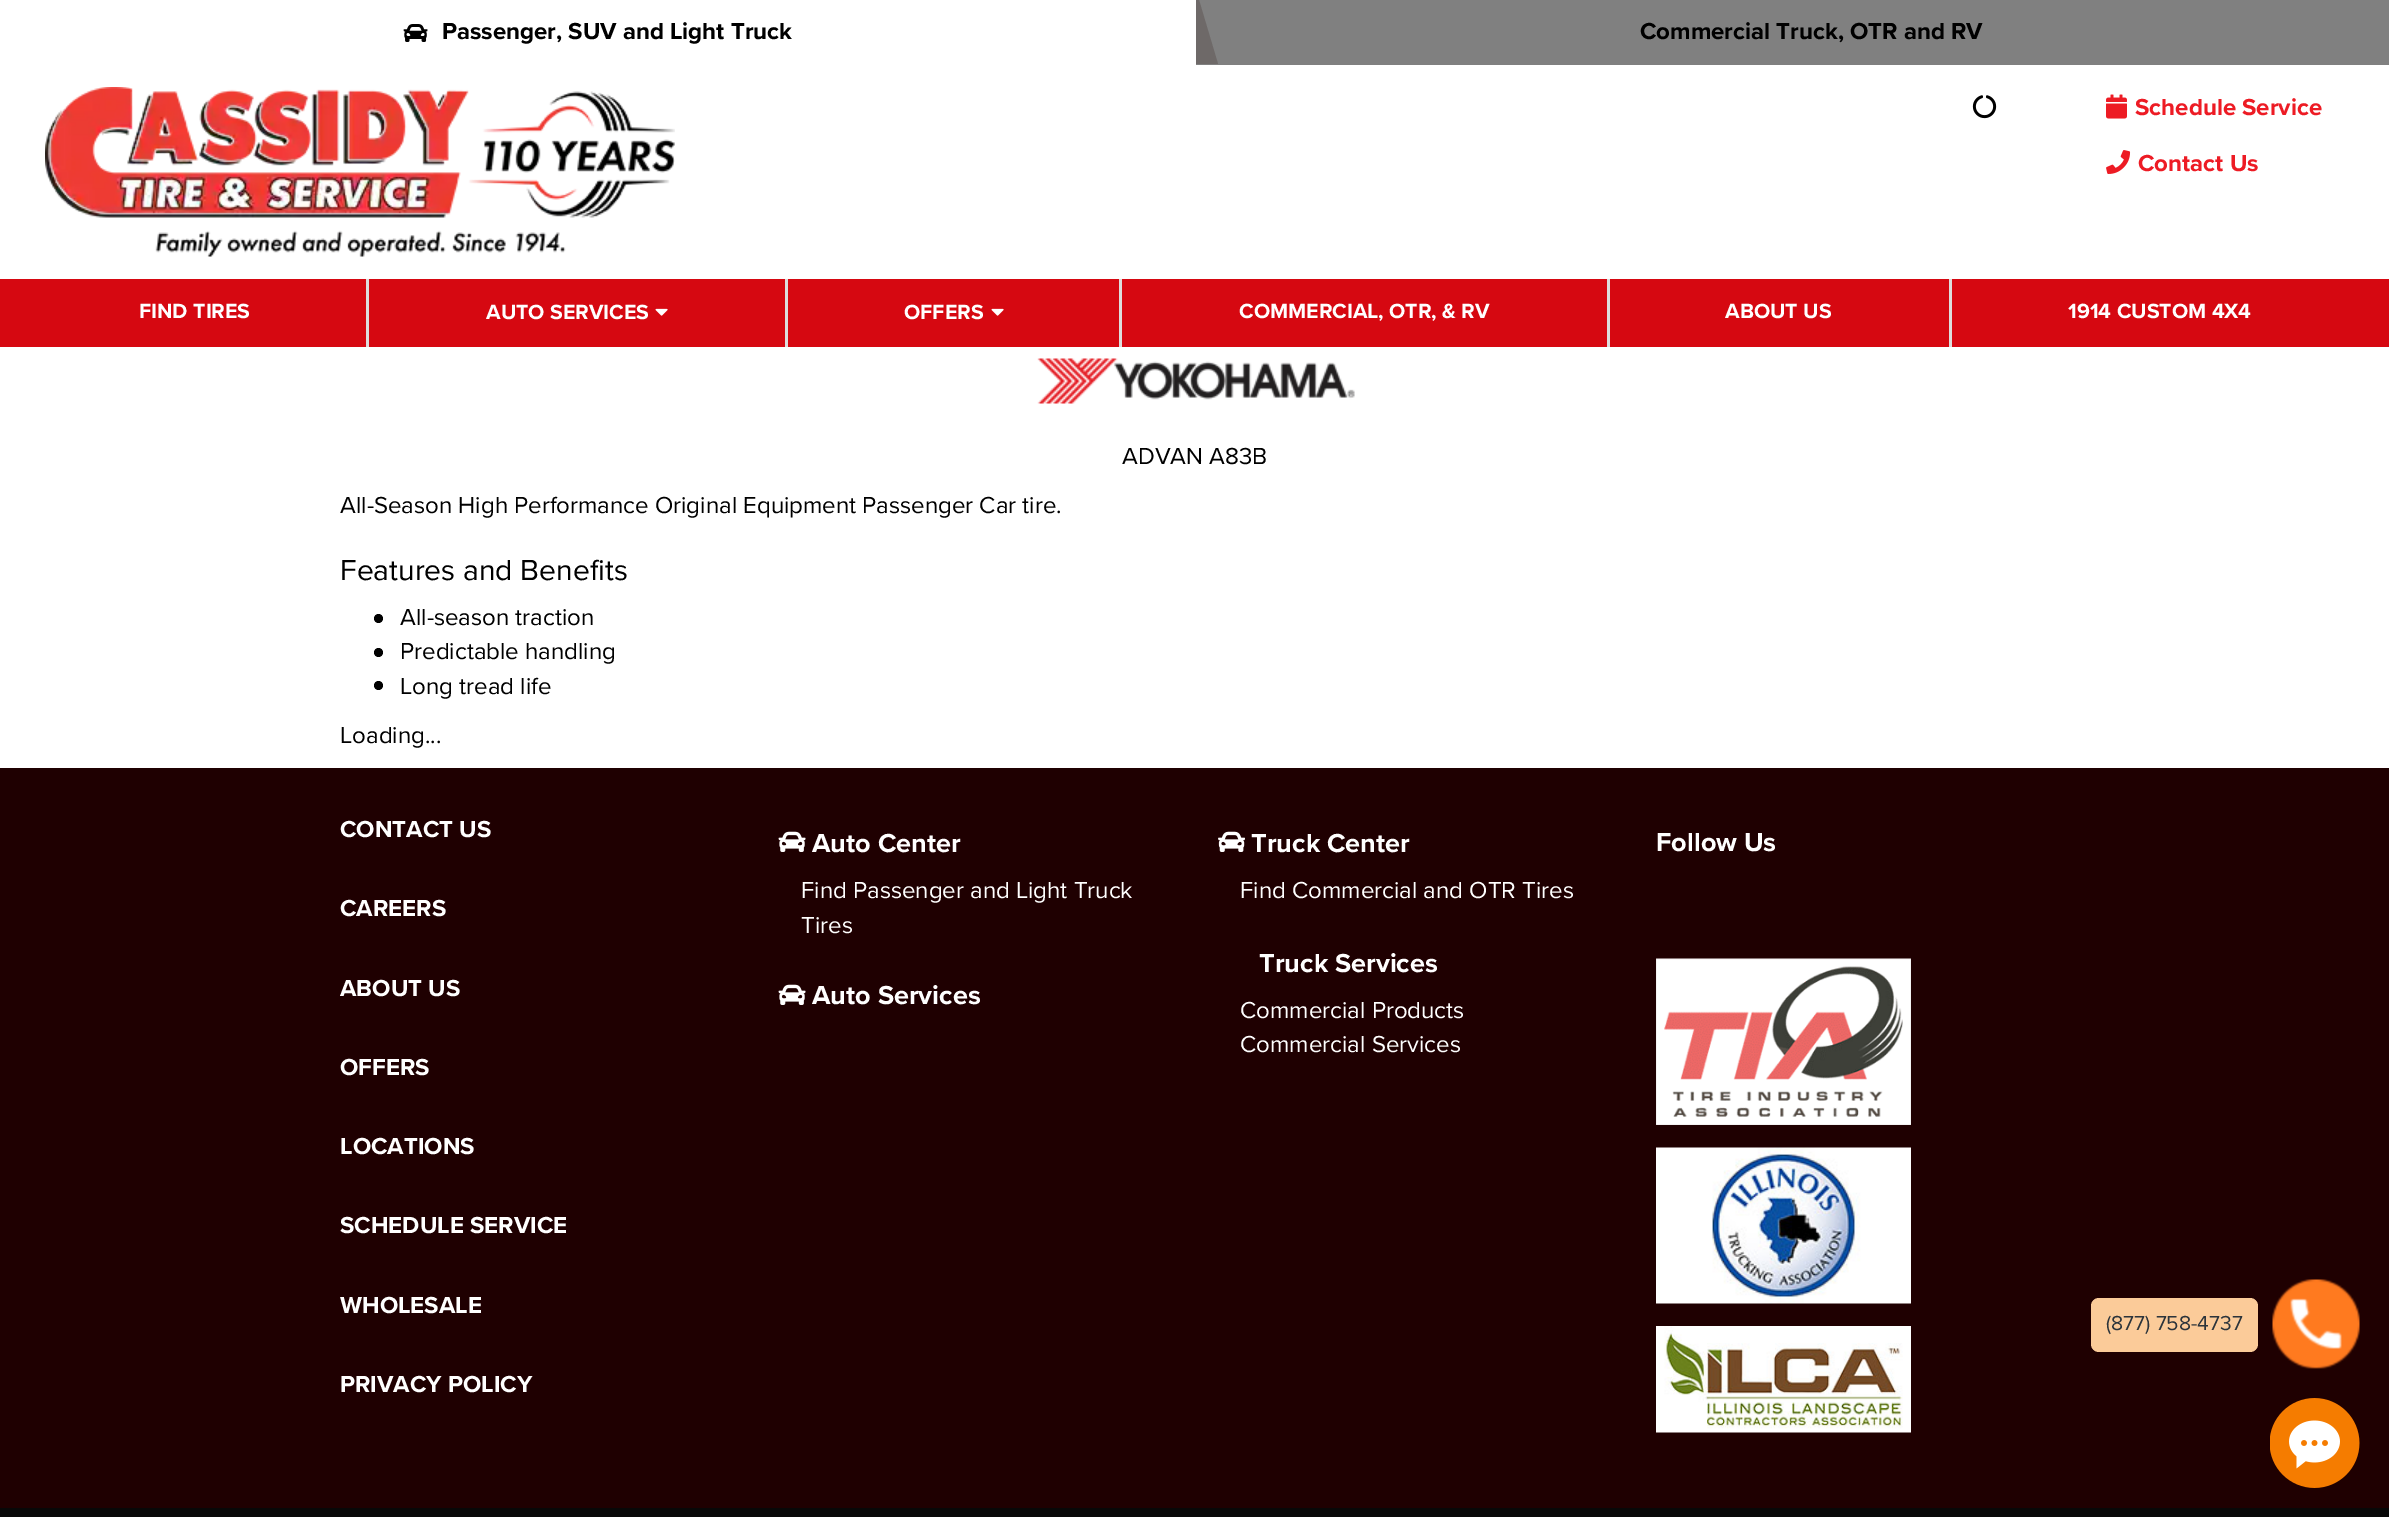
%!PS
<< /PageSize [2389 1517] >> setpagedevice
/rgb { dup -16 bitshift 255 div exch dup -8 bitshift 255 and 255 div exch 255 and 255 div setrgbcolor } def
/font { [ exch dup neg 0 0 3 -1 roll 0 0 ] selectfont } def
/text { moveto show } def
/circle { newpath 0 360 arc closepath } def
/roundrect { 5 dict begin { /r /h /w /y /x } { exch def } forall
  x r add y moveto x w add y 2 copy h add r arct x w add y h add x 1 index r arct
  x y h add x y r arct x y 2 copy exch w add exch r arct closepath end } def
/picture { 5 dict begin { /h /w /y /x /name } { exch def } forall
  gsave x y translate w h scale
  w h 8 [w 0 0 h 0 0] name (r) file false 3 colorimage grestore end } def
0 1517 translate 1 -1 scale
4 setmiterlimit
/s1 { /ProximaNova-Bold 24 font 16#000000 rgb } def
/s2 { /ProximaNova-Bold 24 font 16#ED1B24 rgb } def
/s3 { /ProximaNova-Bold 21.25 font 16#FFFFFF rgb } def
/s4 { /ProximaNova-Regular 24 font 16#000000 rgb } def
/s5 { /ProximaNova-Regular 30 font 16#000000 rgb } def
/s6 { /ProximaNova-Bold 24 font 16#FFFFFF rgb } def
/s7 { /ProximaNova-Bold 27 font 16#FFFFFF rgb } def
/s8 { /ProximaNova-Regular 24 font 16#FFFFFF rgb } def
/s9 { /ProximaNova-Regular 21 font 16#2C343B rgb } def
16#FFFFFF rgb
0 0 2389 1517 rectfill
(pic1.raw) 403 24 25 18 picture
s1
(Passenger, SUV and Light Truck) 442 39 text
16#808080 rgb
1196 0 1193 65 rectfill
16#6E6968 rgb
1196 64 moveto 1196 -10 lineto 1218 64 lineto closepath fill
s1
(Commercial Truck, OTR and RV) 1640 39 text
(pic2.raw) 45 87 630 170 picture
(pic3.raw) 1972 95 25 24 picture
(pic4.raw) 2106 94 21 25 picture
s2
(Schedule Service) 2135 115 text
(pic5.raw) 2106 150 25 24 picture
(Contact Us) 2138 171 text
16#D60811 rgb
0 279 2389 68 rectfill
s3
(FIND TIRES) 139 318 text
16#DDDDDD rgb
366 279 3 68 rectfill
s3
(AUTO SERVICES) 486 319 text
(pic6.raw) 655 308 13 8 picture
16#DDDDDD rgb
785 279 3 68 rectfill
s3
(OFFERS) 904 319 text
(pic6.raw) 991 308 13 8 picture
16#DDDDDD rgb
1119 279 3 68 rectfill
s3
(COMMERCIAL, OTR, & RV) 1239 318 text
16#DDDDDD rgb
1607 279 3 68 rectfill
s3
(ABOUT US) 1725 318 text
16#DDDDDD rgb
1949 279 3 68 rectfill
s3
(1914 CUSTOM 4X4) 2068 318 text
(pic7.raw) 1037 358 318 46 picture
s4
(ADVAN A83B) 1122 464 text
(All-Season High Performance Original Equipment Passenger Car tire.) 340 513 text
s5
(Features and Benefits) 340 580 text
378.5 618.5 4.5 circle fill
s4
(All-season traction) 400 625 text
378.5 652.5 4.5 circle fill
(Predictable handling) 400 659 text
378.5 685.5 4.5 circle fill
(Long tread life) 400 694 text
(Loading...) 340 743 text
16#1F0001 rgb
0 768 2389 740 rectfill
s6
(CONTACT US) 340 837 text
(CAREERS) 340 916 text
(ABOUT US) 340 996 text
(OFFERS) 340 1075 text
(LOCATIONS) 340 1154 text
(SCHEDULE SERVICE) 340 1233 text
(WHOLESALE) 340 1313 text
(PRIVACY POLICY) 340 1392 text
(pic8.raw) 778 831 28 21 picture
s7
(Auto Center) 812 852 text
s8
(Find Passenger and Light Truck) 801 898 text
(Tires) 801 933 text
(pic8.raw) 778 984 28 21 picture
s7
(Auto Services) 812 1004 text
(pic9.raw) 1218 831 27 21 picture
(Truck Center) 1251 852 text
s8
(Find Commercial and OTR Tires) 1240 898 text
s7
(Truck Services) 1259 972 text
s8
(Commercial Products) 1240 1018 text
(Commercial Services) 1240 1052 text
s7
(Follow Us) 1656 851 text
(pic10.raw) 1656 958 255 167 picture
(pic11.raw) 1656 1147 255 157 picture
(pic12.raw) 1656 1326 255 107 picture
16#080808 rgb
0 1508 2389 9 rectfill
16#FBCB99 rgb
2091 1298 167 54 8 roundrect fill
s9
(\(877\) 758-4737) 2106 1330 text
(pic13.raw) 2272 1279 88 90 picture
(pic14.raw) 2270 1398 90 90 picture
showpage
